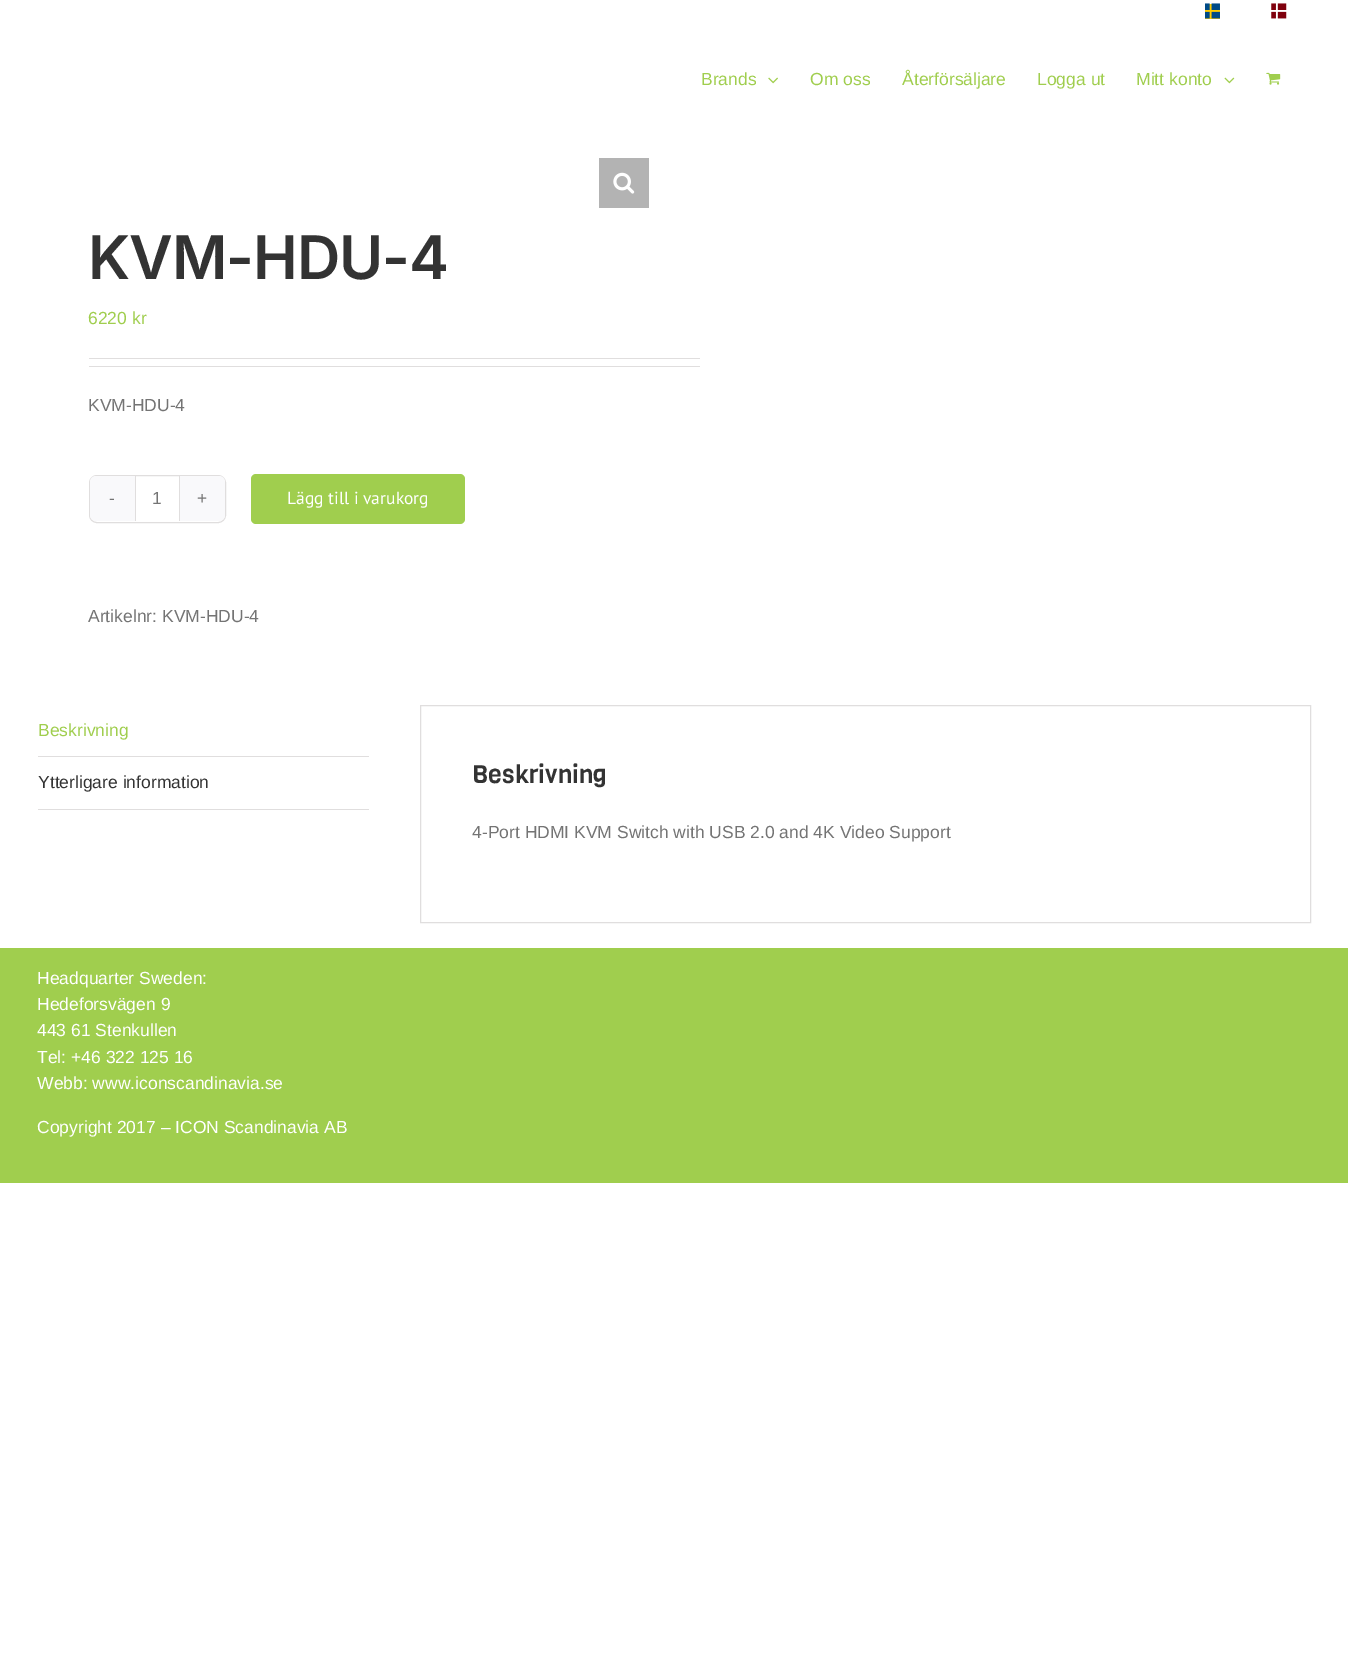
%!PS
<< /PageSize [1348 1679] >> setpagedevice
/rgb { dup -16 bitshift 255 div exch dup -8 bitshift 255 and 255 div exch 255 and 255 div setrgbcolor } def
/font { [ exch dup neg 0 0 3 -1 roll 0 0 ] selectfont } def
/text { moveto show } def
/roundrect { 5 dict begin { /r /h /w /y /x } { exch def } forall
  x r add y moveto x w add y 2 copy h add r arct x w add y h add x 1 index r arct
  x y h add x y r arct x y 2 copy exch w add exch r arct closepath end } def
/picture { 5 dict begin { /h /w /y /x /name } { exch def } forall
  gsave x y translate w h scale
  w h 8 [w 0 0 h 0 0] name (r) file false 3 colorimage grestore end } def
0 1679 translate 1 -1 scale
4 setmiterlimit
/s1 { /LiberationSans-Regular 17.5 font 16#A0CE4E rgb } def
/s2 { /LiberationSans-Regular 17.5 font 16#747474 rgb } def
/s3 { /PTSans-Regular 17.5 font 16#FFFFFF rgb } def
/s4 { /LiberationSans-Regular 17.5 font 16#333333 rgb } def
/s5 { /Viga-Regular 25 font 16#333333 rgb } def
/s6 { /LiberationSans-Regular 17.5 font 16#FFFFFF rgb } def
16#FFFFFF rgb
0 0 1348 1679 rectfill
16#FFCD00 rgb
1205 4 15 15 rectfill
(pic1.raw) 1205 3 15 16 picture
(pic2.raw) 1271 3 16 16 picture
s1
(Brands) 701 85 text
(pic3.raw) 768 77 10 7 picture
(Om oss) 810 85 text
(Återförsäljare) 902 85 text
(Logga ut) 1037 85 text
(Mitt konto) 1136 85 text
(pic4.raw) 1224 77 11 7 picture
(pic5.raw) 1266 72 15 13 picture
16#B3B3B3 rgb
599 158 50 50 rectfill
(pic6.raw) 613 172 22 22 picture
/Inter-SemiBold 60 font
16#333333 rgb
88 279 moveto -1 0 (KVM-HDU-4) ashow
s1
(6220 kr) 88 324 text
16#E0DEDE rgb
89 358 611 1 rectfill
89 366 611 1 rectfill
s2
(KVM-HDU-4) 88 411 text
16#E0DEDE rgb
89.5 475.5 136 47 7.5 roundrect stroke
16#F9F9FB rgb
96 476 moveto 135 476 lineto 135 521 lineto 96 521 lineto 92.5 521 90 518.5 90 515 curveto 90 482 lineto 90 478.5 92.5 476 96 476 curveto closepath fill
s2
(-) 109 504 text
16#E0DEDE rgb
179 476 1 45 rectfill
135 476 1 45 rectfill
s2
(1) 152 504 text
16#F9F9FB rgb
180 476 moveto 219 476 lineto 222.5 476 225 478.5 225 482 curveto 225 515 lineto 225 518.5 222.5 521 219 521 curveto 180 521 lineto closepath fill
s2
(+) 197 504 text
16#A0CE4E rgb
251 474 214 50 5 roundrect fill
s3
(Lägg till i varukorg) 287 504 text
s2
(Artikelnr: KVM-HDU-4) 88 622 text
16#E0DEDE rgb
38 756 331 1 rectfill
s1
(Beskrivning) 38 736 text
16#E0DEDE rgb
38 809 331 1 rectfill
s4
(Ytterligare information) 38 788 text
16#E0DEDE rgb
420.5 705.5 890 217 rectstroke
s5
(Beskrivning) 472 783 text
s2
(4-Port HDMI KVM Switch with USB 2.0 and 4K Video Support) 472 838 text
16#A0CE4E rgb
0 948 1348 235 rectfill
s6
(Headquarter Sweden:) 37 984 text
(Hedeforsvägen 9) 37 1010 text
(443 61 Stenkullen) 37 1036 text
(Tel: +46 322 125 16) 37 1063 text
(Webb: www.iconscandinavia.se) 37 1089 text
(Copyright 2017 – ICON Scandinavia AB) 37 1133 text
showpage
